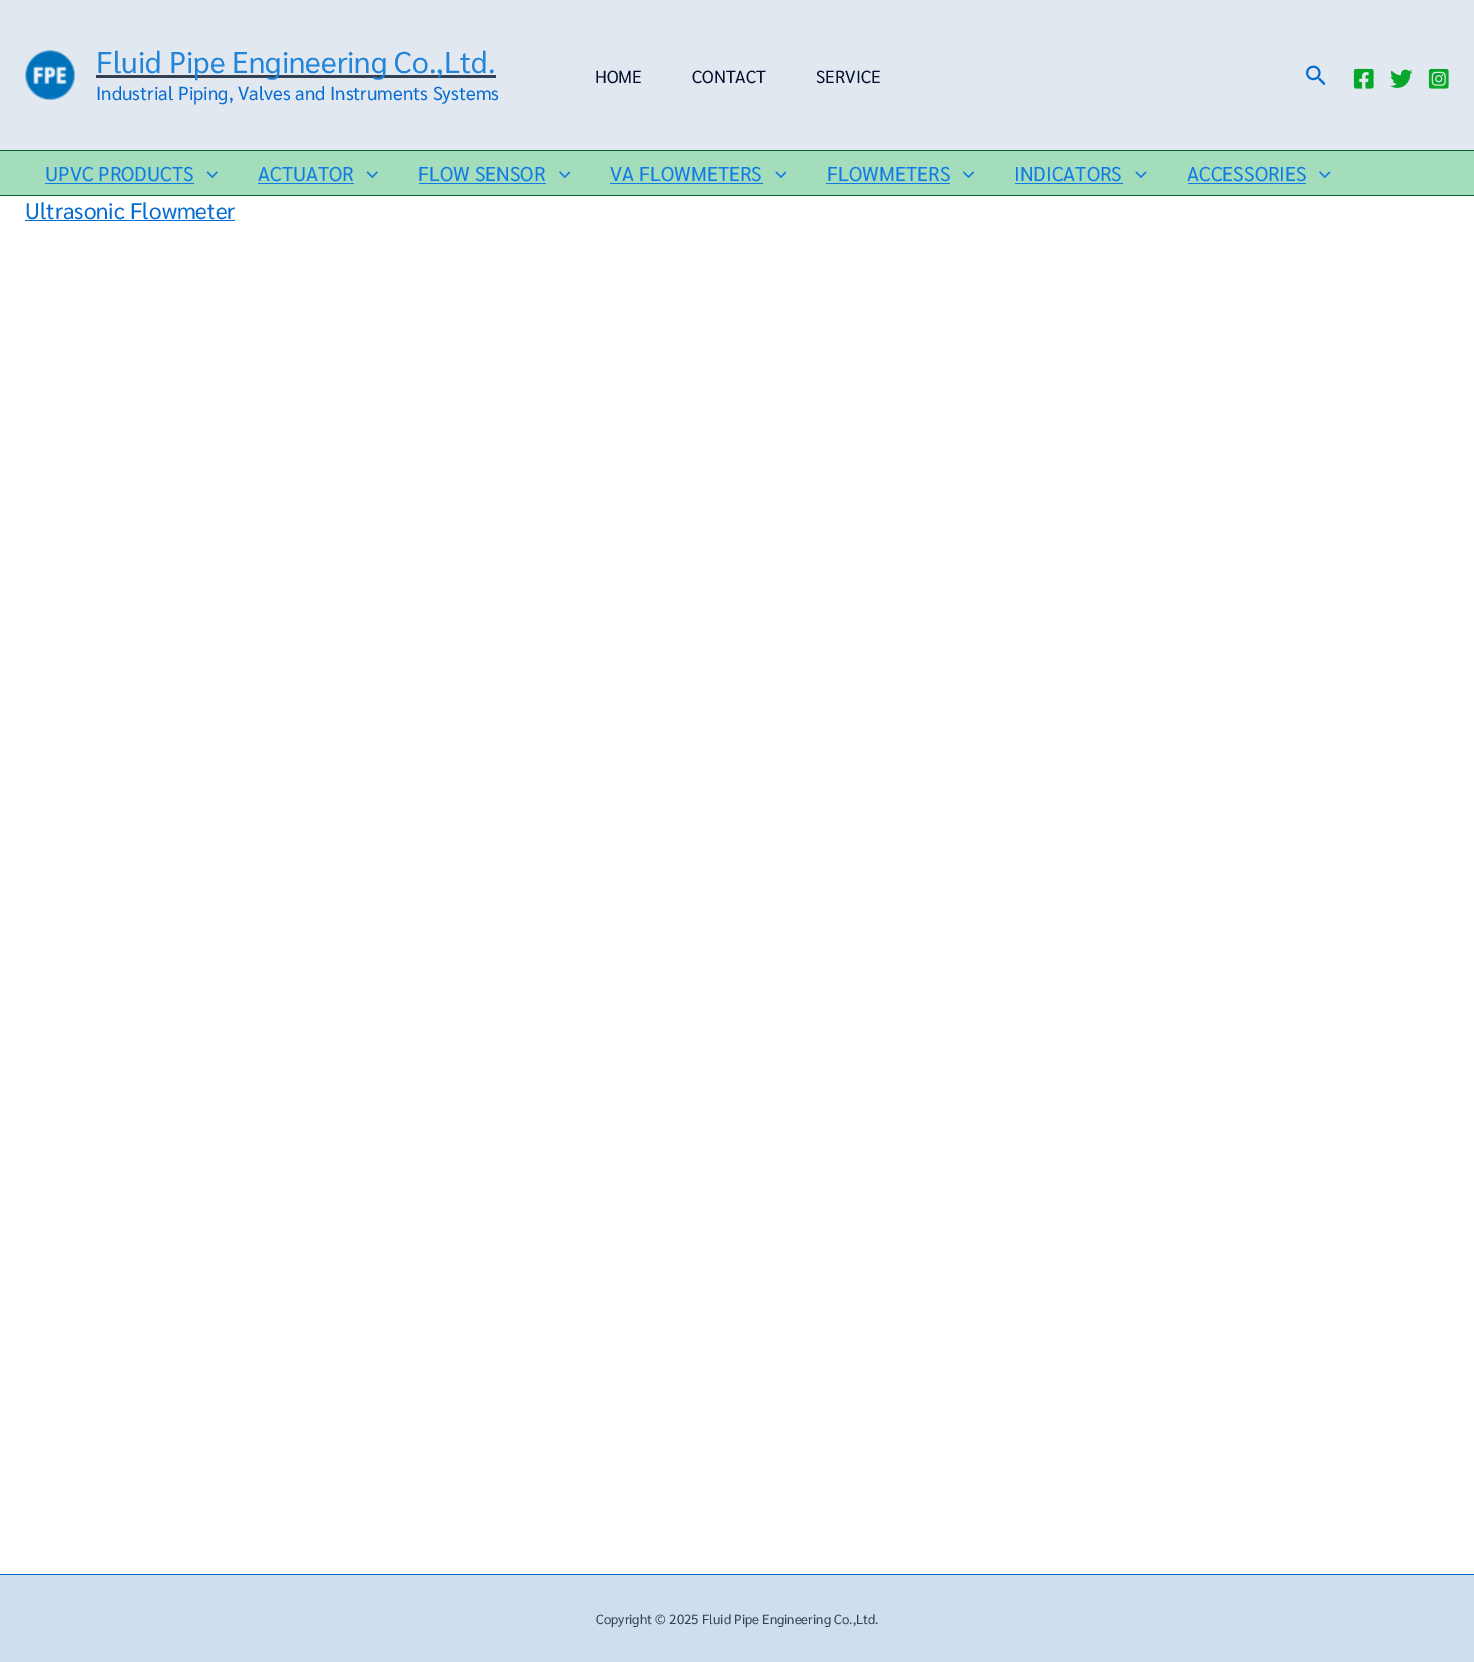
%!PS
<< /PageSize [1474 1662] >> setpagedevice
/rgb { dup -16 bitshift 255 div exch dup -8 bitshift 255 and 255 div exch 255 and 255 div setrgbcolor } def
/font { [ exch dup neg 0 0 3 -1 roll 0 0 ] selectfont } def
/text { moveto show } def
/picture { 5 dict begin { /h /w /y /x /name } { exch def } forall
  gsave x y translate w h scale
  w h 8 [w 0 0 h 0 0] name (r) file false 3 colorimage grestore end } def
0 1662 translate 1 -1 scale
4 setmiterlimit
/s1 { /Sarabun-Regular 30 font 16#2385DA rgb } def
/s2 { /Sarabun-Regular 18.75 font 16#046BD2 rgb } def
/s3 { /Sarabun-Regular 17.5 font 16#03102C rgb } def
/s4 { /Sarabun-Regular 20 font 16#107BE6 rgb } def
/s5 { /Sarabun-Regular 22.5 font 16#046BD2 rgb } def
/s6 { /Sarabun-Regular 13.3 font 16#334155 rgb } def
16#FFFFFF rgb
0 0 1474 1662 rectfill
16#E2E8F0 rgb
0 0 1474 150 rectfill
16#035E29 rgb
0 150 1474 1 rectfill
(pic1.raw) 25 50 50 50 picture
16#334155 rgb
96 75 400 3 rectfill
s1
(Fluid Pipe Engineering Co.,Ltd.) 96 73 text
s2
(Industrial Piping, Valves and Instruments Systems) 96 100 text
s3
(HOME) 595 83 text
(CONTACT) 692 83 text
(SERVICE) 816 83 text
(pic2.raw) 1306 65 19 21 picture
(pic3.raw) 1353 68 21 21 picture
(pic4.raw) 1390 69 23 19 picture
(pic5.raw) 1428 68 21 21 picture
16#A3DDBB rgb
0 151 1474 44 rectfill
16#035E29 rgb
0 195 1474 1 rectfill
s4
(UPVC PRODUCTS) 45 181 text
45 183 149 1 rectfill
(pic6.raw) 206 171 12 8 picture
(ACTUATOR) 258 181 text
258 183 96 1 rectfill
(pic6.raw) 366 171 12 8 picture
(FLOW SENSOR) 418 181 text
419 183 127 1 rectfill
(pic7.raw) 559 171 11 8 picture
(VA FLOWMETERS) 610 181 text
610 183 153 1 rectfill
(pic8.raw) 775 171 11 7 picture
(FLOWMETERS) 827 181 text
826 183 124 1 rectfill
(pic9.raw) 963 171 12 8 picture
(INDICATORS) 1014 181 text
1015 183 108 1 rectfill
(pic10.raw) 1135 171 12 7 picture
(ACCESSORIES) 1187 181 text
1188 183 118 1 rectfill
(pic11.raw) 1319 171 12 8 picture
s5
(Ultrasonic Flowmeter) 25 219 text
25 220 210 1 rectfill
16#CEDEEE rgb
0 1575 1474 87 rectfill
16#046BD2 rgb
0 1574 1474 1 rectfill
s6
(Copyright © 2025 Fluid Pipe Engineering Co.,Ltd.) 596 1624 text
showpage
